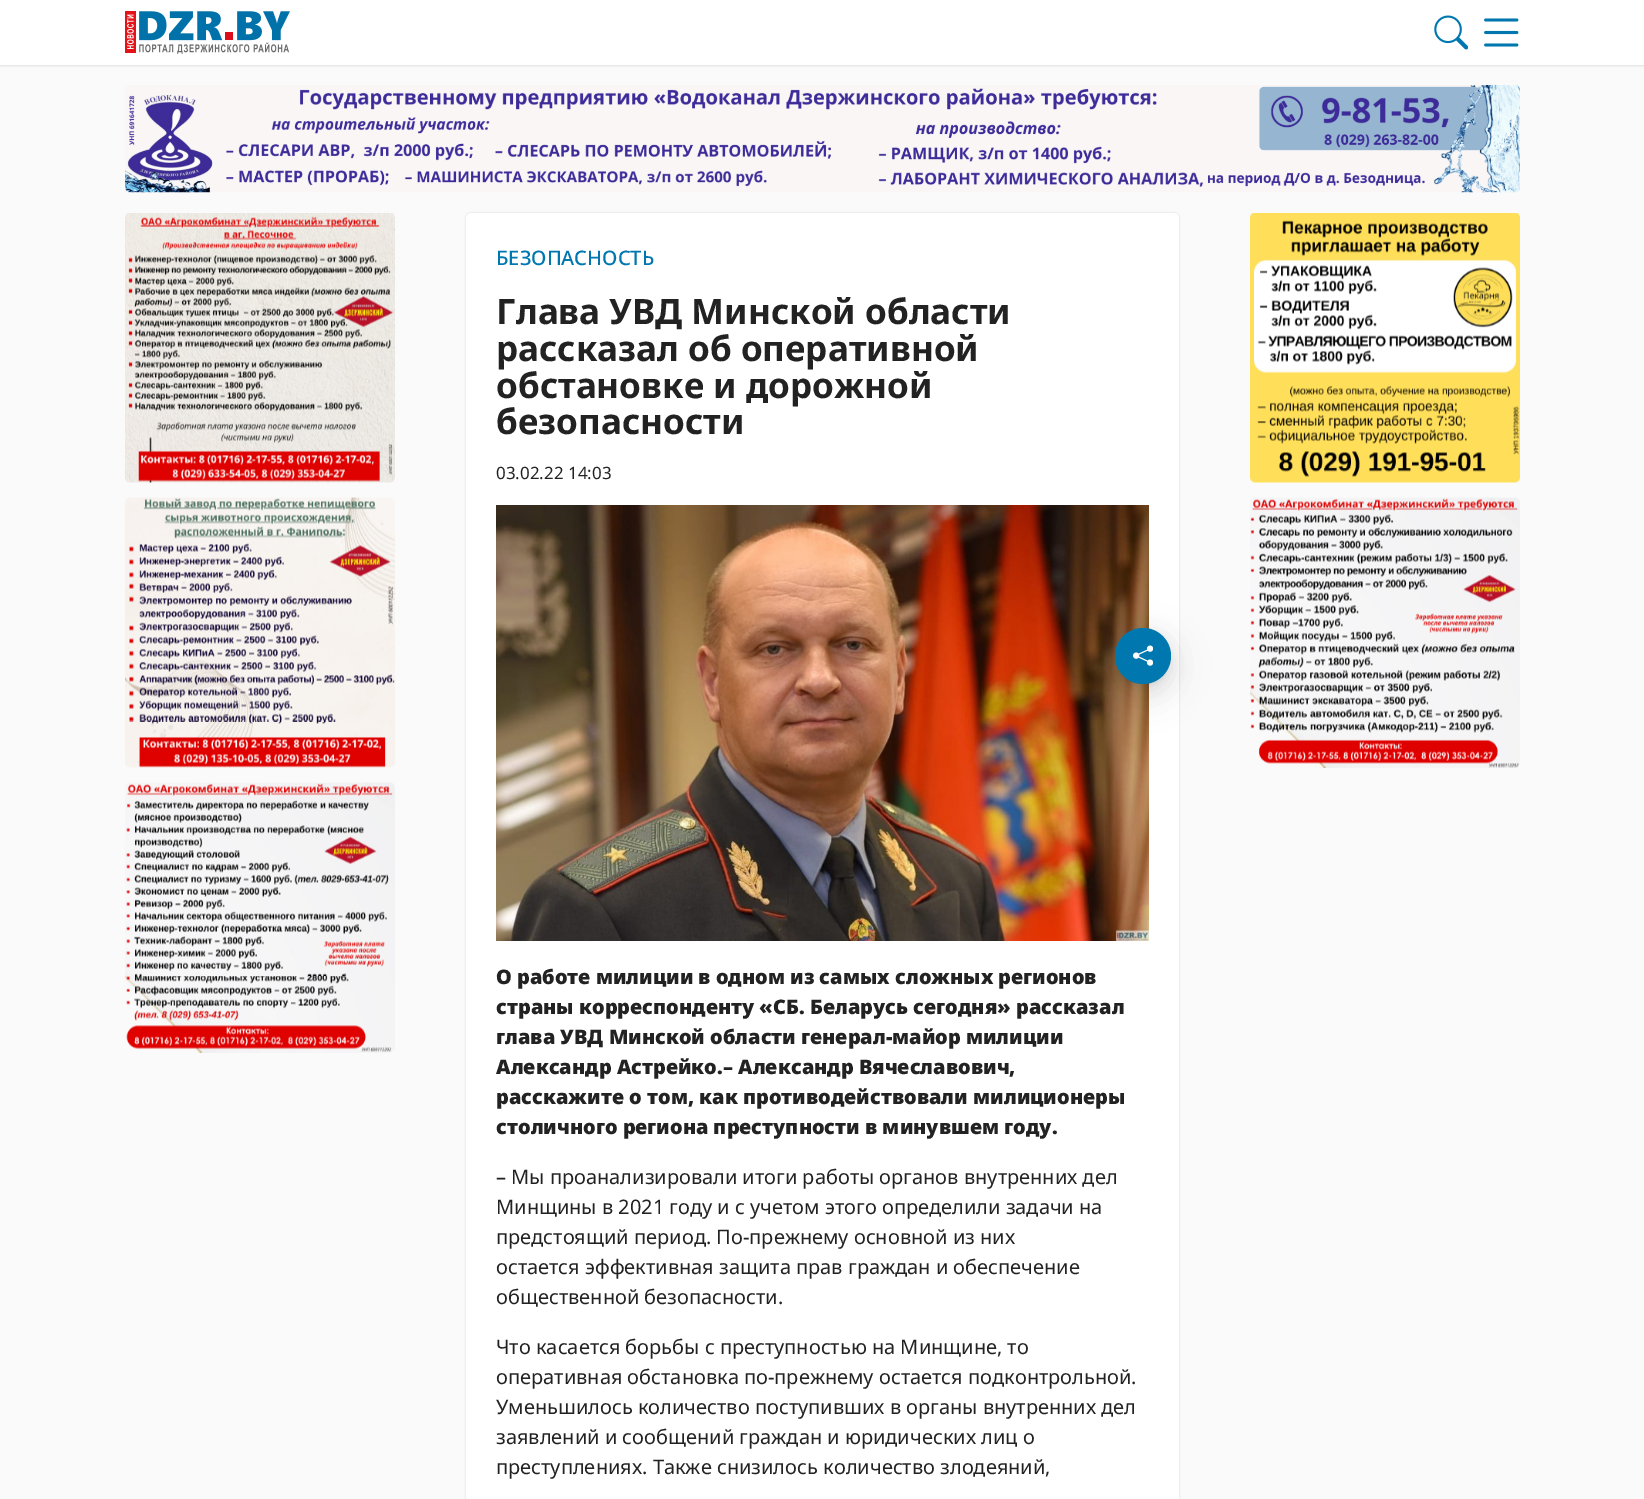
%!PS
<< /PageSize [1644 1499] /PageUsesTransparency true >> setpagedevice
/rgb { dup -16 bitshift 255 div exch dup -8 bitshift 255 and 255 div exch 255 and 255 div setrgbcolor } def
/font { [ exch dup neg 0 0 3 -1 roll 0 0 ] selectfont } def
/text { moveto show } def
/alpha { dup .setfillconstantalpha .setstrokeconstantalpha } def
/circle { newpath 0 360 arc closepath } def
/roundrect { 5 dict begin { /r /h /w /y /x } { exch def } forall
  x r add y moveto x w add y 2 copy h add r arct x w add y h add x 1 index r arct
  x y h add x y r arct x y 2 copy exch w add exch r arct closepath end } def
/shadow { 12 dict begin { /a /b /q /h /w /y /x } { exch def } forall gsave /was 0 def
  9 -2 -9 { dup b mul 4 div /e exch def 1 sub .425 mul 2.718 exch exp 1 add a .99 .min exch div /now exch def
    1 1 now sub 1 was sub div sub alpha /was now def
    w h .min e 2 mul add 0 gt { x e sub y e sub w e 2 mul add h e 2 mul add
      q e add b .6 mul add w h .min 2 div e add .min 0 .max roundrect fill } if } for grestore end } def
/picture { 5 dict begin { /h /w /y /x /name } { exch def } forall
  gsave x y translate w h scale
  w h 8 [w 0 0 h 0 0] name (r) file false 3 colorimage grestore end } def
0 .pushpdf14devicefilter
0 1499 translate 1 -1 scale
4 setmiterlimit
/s1 { /NotoSans-Medium 20 font 16#0078AF rgb } def
/s2 { /NotoSans-Bold 35 font 16#222222 rgb } def
/s3 { /NotoSans-Regular 17 font 16#222222 rgb } def
/s4 { /NotoSans-Black 20 font 16#222222 rgb } def
/s5 { /NotoSans-Regular 20 font 16#222222 rgb } def
16#FAFAFA rgb
0 0 1644 1499 rectfill
16#000000 rgb
0 1 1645 65 0 1 0.1 shadow
16#FFFFFF rgb
0 0 1644 65 rectfill
(pic1.raw) 125 11 165 43 picture
(pic2.raw) 1434 15 34 35 picture
(pic3.raw) 1484 18 35 29 picture
(pic4.raw) 125 85 1395 108 picture
(pic5.raw) 125 213 270 270 picture
(pic6.raw) 125 497 270 271 picture
(pic7.raw) 125 782 270 271 picture
16#000000 rgb
466 213 713 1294 5 1 0.15 shadow
16#FFFFFF rgb
466 213 713 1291 5 roundrect fill
s1
(БЕЗОПАСНОСТЬ) 496 265 text
s2
(Глава УВД Минской области) 496 324 text
(рассказал об оперативной) 496 361 text
(обстановке и дорожной) 496 398 text
(безопасности) 496 434 text
s3
(03.02.22 14:03) 496 479 text
(pic8.raw) 496 505 653 436 picture
16#000000 rgb
1105 629 76 76 38 17.5 0.05 shadow
1120 636 46 47 23 4 0.12 shadow
1115 635 56 56 28 10 0.08 shadow
16#0078AF rgb
1143 656 28 circle fill
(pic9.raw) 1133 645 20 21 picture
s4
(О работе милиции в одном из самых сложных регионов) 496 984 text
(страны корреспонденту «СБ. Беларусь сегодня» рассказал) 496 1014 text
(глава УВД Минской области генерал-майор милиции) 496 1044 text
(Александр Астрейко.– Александр Вячеславович,) 496 1074 text
(расскажите о том, как противодействовали милиционеры) 496 1104 text
(столичного региона преступности в минувшем году.) 496 1134 text
s5
(– Мы проанализировали итоги работы органов внутренних дел) 496 1184 text
(Минщины в 2021 году и с учетом этого определили задачи на) 496 1214 text
(предстоящий период. По-прежнему основной из них) 496 1244 text
(остается эффективная защита прав граждан и обеспечение) 496 1274 text
(общественной безопасности.) 496 1304 text
(Что касается борьбы с преступностью на Минщине, то) 496 1354 text
(оперативная обстановка по-прежнему остается подконтрольной.) 496 1384 text
(Уменьшилось количество поступивших в органы внутренних дел) 496 1414 text
(заявлений и сообщений граждан и юридических лиц о) 496 1444 text
(преступлениях. Также снизилось количество злодеяний,) 496 1474 text
(pic10.raw) 1250 213 270 270 picture
(pic11.raw) 1250 497 270 271 picture
.poppdf14devicefilter showpage
